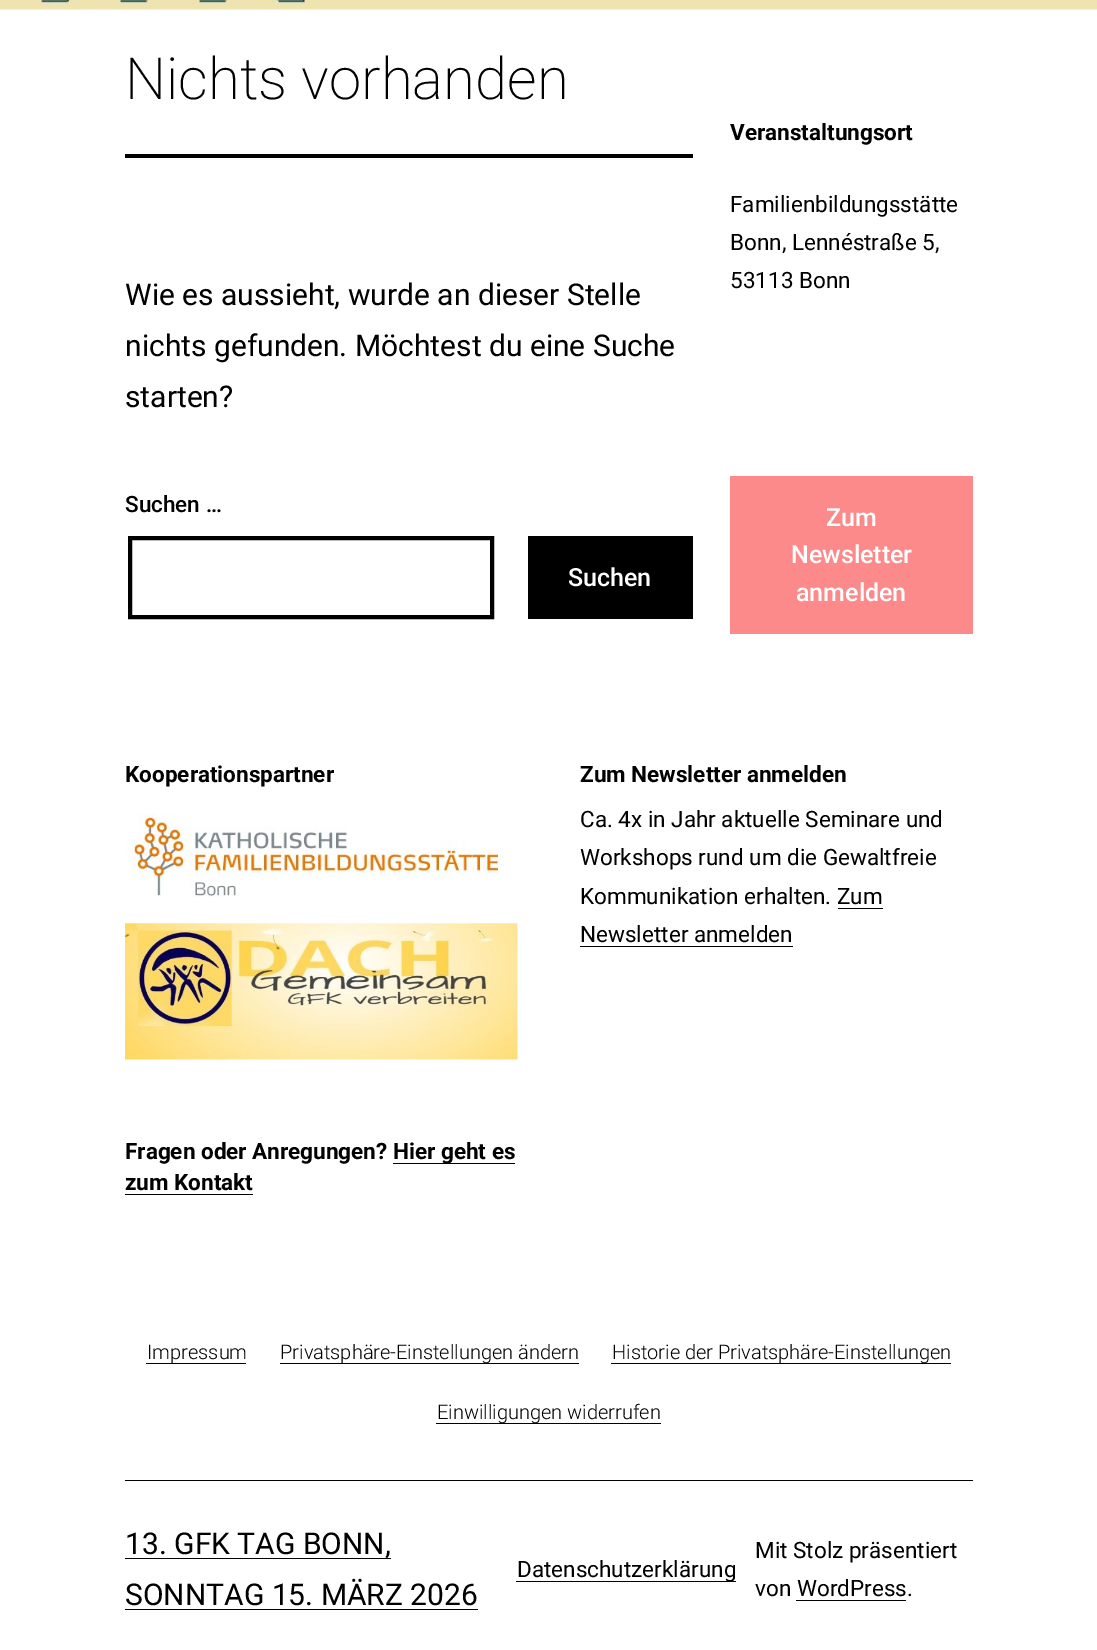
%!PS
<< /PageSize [1097 1650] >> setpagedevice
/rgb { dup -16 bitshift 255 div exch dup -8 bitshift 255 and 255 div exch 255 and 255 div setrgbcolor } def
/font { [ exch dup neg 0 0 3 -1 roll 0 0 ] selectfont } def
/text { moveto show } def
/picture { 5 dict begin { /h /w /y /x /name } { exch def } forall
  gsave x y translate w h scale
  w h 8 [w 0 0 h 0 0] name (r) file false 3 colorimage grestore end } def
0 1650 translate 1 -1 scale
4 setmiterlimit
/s1 { /Roboto-ExtraLight 58 font 16#000000 rgb } def
/s2 { /Roboto-Regular 30 font 16#000000 rgb } def
/s3 { /Roboto-Medium 22.5 font 16#000000 rgb } def
/s4 { /Roboto-Medium 25 font 16#FFFFFF rgb } def
/s5 { /Roboto-Bold 22.5 font 16#000000 rgb } def
/s6 { /Roboto-Regular 22.5 font 16#000000 rgb } def
/s7 { /Roboto-Light 20 font 16#000000 rgb } def
16#FFFFFF rgb
0 0 1097 1650 rectfill
(pic1.raw) 0 0 1097 10 picture
16#000000 rgb
125 154 568 4 rectfill
s1
(Nichts vorhanden) 125 99 text
s2
(Wie es aussieht, wurde an dieser Stelle) 125 305 text
(nichts gefunden. Möchtest du eine Suche) 125 356 text
(starten?) 125 407 text
s3
(Suchen …) 125 512 text
4 setlinewidth
130 538 362 79 rectstroke
528 536 165 83 rectfill
s4
(Suchen) 568 586 text
s5
(Veranstaltungsort) 730 140 text
s6
(Familienbildungsstätte) 730 212 text
(Bonn, Lennéstraße 5,) 730 250 text
(53113 Bonn) 730 288 text
16#FC8A8A rgb
730 476 243 158 rectfill
s4
(Zum) 826 526 text
(Newsletter) 791 563 text
(anmelden) 796 601 text
s5
(Kooperationspartner) 125 782 text
(pic2.raw) 125 813 379 84 picture
(pic3.raw) 125 923 393 137 picture
(Zum Newsletter anmelden) 580 782 text
s6
(Ca. 4x in Jahr aktuelle Seminare und) 580 827 text
(Workshops rund um die Gewaltfreie) 580 865 text
(Kommunikation erhalten. Zum) 580 904 text
(Newsletter anmelden) 580 942 text
838 908 45 1 rectfill
580 946 213 1 rectfill
s5
(Fragen oder Anregungen?) 125 1159 text
393 1163 122 1 rectfill
(Hier geht es) 393 1159 text
(zum Kontakt) 125 1190 text
125 1194 128 1 rectfill
146 1363 100 1 rectfill
s7
(Impressum) 147 1359 text
280 1363 299 1 rectfill
(Privatsphäre-Einstellungen ändern) 280 1359 text
611 1363 340 1 rectfill
(Historie der Privatsphäre-Einstellungen) 612 1359 text
436 1423 225 1 rectfill
(Einwilligungen widerrufen) 437 1419 text
125 1480 848 1 rectfill
125 1558 266 1 rectfill
s2
(13. GFK TAG BONN,) 125 1554 text
(SONNTAG 15. MÄRZ 2026) 125 1605 text
125 1609 353 1 rectfill
516 1581 220 1 rectfill
s6
(Datenschutzerklärung) 517 1577 text
(Mit Stolz präsentiert) 755 1558 text
(von WordPress.) 755 1596 text
796 1600 110 1 rectfill
showpage
